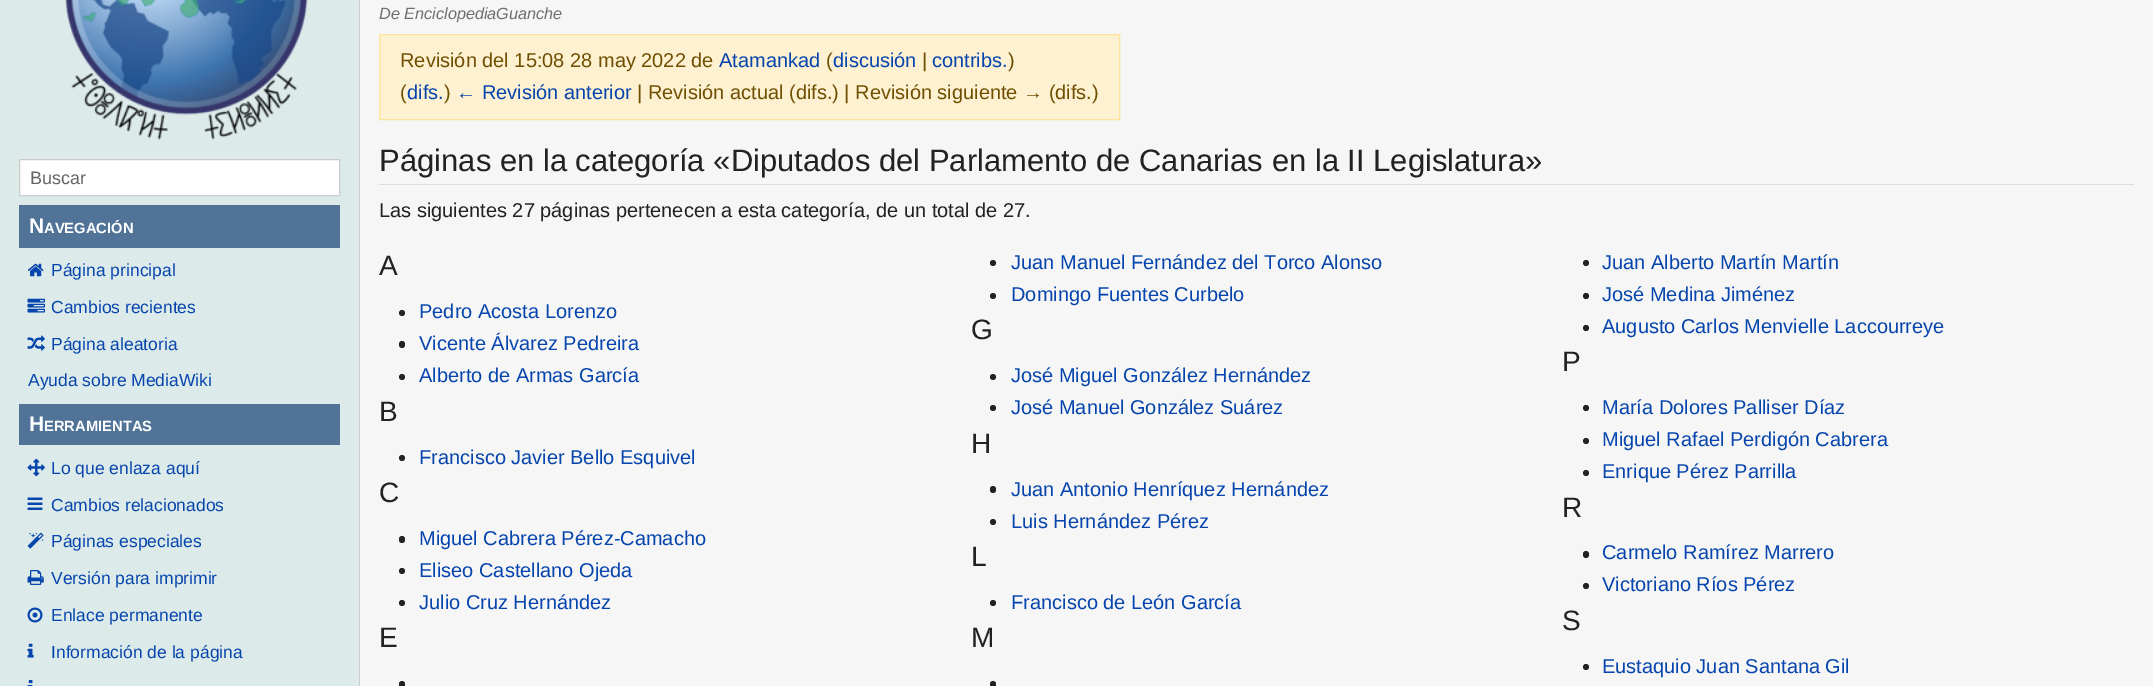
%!PS
<< /PageSize [2153 686] >> setpagedevice
/rgb { dup -16 bitshift 255 div exch dup -8 bitshift 255 and 255 div exch 255 and 255 div setrgbcolor } def
/font { [ exch dup neg 0 0 3 -1 roll 0 0 ] selectfont } def
/text { moveto show } def
/circle { newpath 0 360 arc closepath } def
/roundrect { 5 dict begin { /r /h /w /y /x } { exch def } forall
  x r add y moveto x w add y 2 copy h add r arct x w add y h add x 1 index r arct
  x y h add x y r arct x y 2 copy exch w add exch r arct closepath end } def
/picture { 5 dict begin { /h /w /y /x /name } { exch def } forall
  gsave x y translate w h scale
  w h 8 [w 0 0 h 0 0] name (r) file false 3 colorimage grestore end } def
0 686 translate 1 -1 scale
4 setmiterlimit
/s1 { /LiberationSans-Regular 18 font 16#666666 rgb } def
/s2 { /LiberationSans-Bold 21 font 16#FFFFFF rgb } def
/s3 { /LiberationSans-Bold 14.75 font 16#FFFFFF rgb } def
/s4 { /LiberationSans-Regular 17.5 font 16#0645AD rgb } def
/s5 { /LiberationSans-Italic 16.25 font 16#6F6F6F rgb } def
/s6 { /LiberationSans-Regular 20 font 16#705000 rgb } def
/s7 { /LiberationSans-Regular 20 font 16#0645AD rgb } def
/s8 { /LiberationSans-Regular 31 font 16#222222 rgb } def
/s9 { /LiberationSans-Regular 20 font 16#222222 rgb } def
/s10 { /LiberationSans-Regular 28 font 16#222222 rgb } def
16#DCEAEA rgb
0 0 2153 686 rectfill
(pic1.raw) 65 0 243 140 picture
16#FFFFFF rgb
19.5 159.5 moveto 339.5 159.5 lineto 339.5 195.5 lineto 19.5 195.5 lineto closepath gsave fill grestore
16#CCCCCC rgb
stroke
s1
(Buscar) 30 184 text
16#517398 rgb
19 205 321 43 rectfill
s2
(N) 29 233 text
s3
(AVEGACIÓN) 44 233 text
(pic2.raw) 27 263 17 14 picture
s4
(Página principal) 51 276 text
(pic3.raw) 27 298 18 15 picture
(Cambios recientes) 51 313 text
(pic4.raw) 27 335 18 16 picture
(Página aleatoria) 51 350 text
(Ayuda sobre MediaWiki) 28 386 text
16#517398 rgb
19 404 321 41 rectfill
s2
(H) 29 431 text
s3
(ERRAMIENTAS) 44 431 text
(pic5.raw) 27 458 18 19 picture
s4
(Lo que enlaza aquí) 51 474 text
(pic6.raw) 27 497 16 13 picture
(Cambios relacionados) 51 511 text
(pic7.raw) 27 532 17 17 picture
(Páginas especiales) 51 547 text
(pic8.raw) 27 570 17 15 picture
(Versión para imprimir) 51 584 text
(pic9.raw) 27 607 16 16 picture
(Enlace permanente) 51 621 text
(pic10.raw) 27 643 7 15 picture
(Información de la página) 51 658 text
(pic11.raw) 27 680 6 6 picture
16#F6F6F6 rgb
360 0 1793 686 rectfill
16#CCCCCC rgb
359 0 1 686 rectfill
s5
(De EnciclopediaGuanche) 379 19 text
16#FDF1D1 rgb
379.5 34.5 moveto 1119.5 34.5 lineto 1119.5 119.5 lineto 379.5 119.5 lineto closepath gsave fill grestore
16#FDE29B rgb
stroke
s6
(Revisión del 15:08 28 may 2022 de) 400 67 text
s7
(Atamankad) 719 67 text
s6
(\() 826 67 text
s7
(discusión) 833 67 text
s6
(|) 922 67 text
s7
(contribs.) 932 67 text
s6
(\)) 1008 67 text
(\() 400 99 text
s7
(difs.) 407 99 text
s6
(\)) 444 99 text
s7
(← Revisión anterior) 456 99 text
s6
(| Revisión actual \(difs.\) | Revisión siguiente → \(difs.\)) 637 99 text
16#DDDDDD rgb
379 184 1755 1 rectfill
s8
(Páginas en la categoría «Diputados del Parlamento de Canarias en la II Legislatura») 379 171 text
s9
(Las siguientes 27 páginas pertenecen a esta categoría, de un total de 27.) 379 217 text
1586 263 3 circle fill
s7
(Juan Alberto Martín Martín) 1602 269 text
16#222222 rgb
1586 296 3 circle fill
s7
(José Medina Jiménez) 1602 301 text
16#222222 rgb
1586 328 3 circle fill
s7
(Augusto Carlos Menvielle Laccourreye) 1602 333 text
16#222222 rgb
990 681 6 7 3 roundrect fill
s10
(M) 971 647 text
(A) 379 275 text
402 313 3 circle fill
s7
(Pedro Acosta Lorenzo) 419 318 text
16#222222 rgb
399 341 6 7 3 roundrect fill
s7
(Vicente Álvarez Pedreira) 419 350 text
16#222222 rgb
402 377 3 circle fill
s7
(Alberto de Armas García) 419 382 text
16#222222 rgb
993 263 3 circle fill
s7
(Juan Manuel Fernández del Torco Alonso) 1011 269 text
16#222222 rgb
993 296 3 circle fill
s7
(Domingo Fuentes Curbelo) 1011 301 text
s10
(B) 379 421 text
402 458 3 circle fill
s7
(Francisco Javier Bello Esquivel) 419 464 text
s10
(G) 971 339 text
993 377 3 circle fill
s7
(José Miguel González Hernández) 1011 382 text
16#222222 rgb
993 408 3 circle fill
s7
(José Manuel González Suárez) 1011 414 text
s10
(P) 1562 371 text
1586 408 3 circle fill
s7
(María Dolores Palliser Díaz) 1602 414 text
16#222222 rgb
1586 441 3 circle fill
s7
(Miguel Rafael Perdigón Cabrera) 1602 446 text
16#222222 rgb
1586 473 3 circle fill
s7
(Enrique Pérez Parrilla) 1602 478 text
s10
(C) 379 502 text
399 536 6 7 3 roundrect fill
s7
(Miguel Cabrera Pérez-Camacho) 419 545 text
16#222222 rgb
402 571 3 circle fill
s7
(Eliseo Castellano Ojeda) 419 577 text
16#222222 rgb
402 603 3 circle fill
s7
(Julio Cruz Hernández) 419 609 text
s10
(H) 971 453 text
990 486 6 7 3 roundrect fill
s7
(Juan Antonio Henríquez Hernández) 1011 496 text
16#222222 rgb
993 522 3 circle fill
s7
(Luis Hernández Pérez) 1011 528 text
s10
(R) 1562 517 text
1583 551 6 7 3 roundrect fill
s7
(Carmelo Ramírez Marrero) 1602 559 text
16#222222 rgb
1586 586 3 circle fill
s7
(Victoriano Ríos Pérez) 1602 591 text
s10
(L) 971 566 text
993 603 3 circle fill
s7
(Francisco de León García) 1011 609 text
s10
(E) 379 647 text
399 681 6 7 3 roundrect fill
(S) 1562 630 text
1586 667 3 circle fill
s7
(Eustaquio Juan Santana Gil) 1602 673 text
showpage
